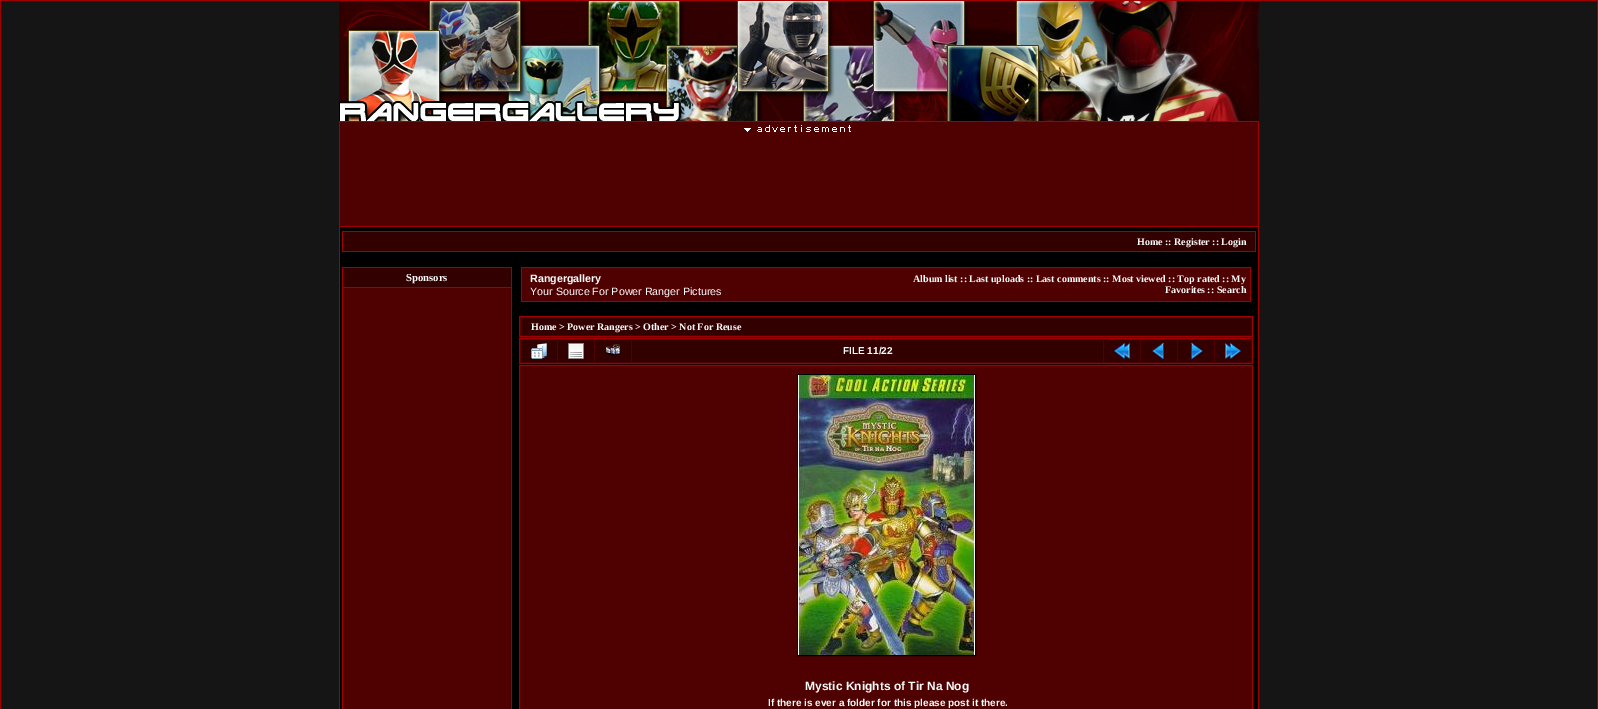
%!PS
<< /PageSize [1598 709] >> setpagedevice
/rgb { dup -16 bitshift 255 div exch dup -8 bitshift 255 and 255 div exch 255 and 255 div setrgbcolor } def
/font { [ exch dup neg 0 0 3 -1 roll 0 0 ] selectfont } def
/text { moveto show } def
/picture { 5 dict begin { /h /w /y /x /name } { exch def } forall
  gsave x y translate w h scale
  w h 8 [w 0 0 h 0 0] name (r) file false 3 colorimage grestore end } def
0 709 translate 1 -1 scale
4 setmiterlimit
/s1 { /LiberationSerif-Bold 10 font 16#FFFFFF rgb } def
/s2 { /LiberationSerif-Bold 10.7 font 16#FFFFFF rgb } def
/s3 { /LiberationSans-Bold 10.7 font 16#FFFFFF rgb } def
/s4 { /LiberationSans-Regular 10.7 font 16#FFFFFF rgb } def
/s5 { /LiberationSans-Bold 10 font 16#FFFFFF rgb } def
/s6 { /LiberationSans-Bold 12 font 16#FFFFFF rgb } def
16#151515 rgb
0 0 1598 709 rectfill
16#A20000 rgb
0 0 1598 1 rectfill
1597 0 1 709 rectfill
0 0 1 709 rectfill
(pic1.raw) 339 1 920 120 picture
339 121 920 588 rectfill
16#000000 rgb
340 227 918 482 rectfill
16#4F0101 rgb
340 122 918 104 rectfill
(pic2.raw) 744 125 107 7 picture
16#A20000 rgb
342 231 914 21 rectfill
16#330000 rgb
343 232 912 19 rectfill
s1
(Home :: Register :: Login) 1137 245 text
16#A20000 rgb
342 267 170 442 rectfill
16#330000 rgb
343 268 168 19 rectfill
s2
(Sponsors) 406 281 text
16#4F0101 rgb
343 288 168 421 rectfill
16#A20000 rgb
521 267 730 35 rectfill
16#4F0101 rgb
522 268 728 33 rectfill
s3
(Rangergallery) 530 282 text
s4
(Your Source For Power Ranger Pictures) 530 295 text
s1
(Album list :: Last uploads :: Last comments :: Most viewed :: Top rated :: My) 913 282 text
(Favorites :: Search) 1165 293 text
16#4F0101 rgb
519.5 316.5 moveto 1252.5 316.5 lineto 1252.5 336.5 lineto 519.5 336.5 lineto closepath gsave fill grestore
16#A20000 rgb
stroke
16#330000 rgb
521 318 730 17 rectfill
s1
(Home > Power Rangers > Other > Not For Reuse) 531 330 text
16#4F0101 rgb
519.5 338.5 moveto 1252.5 338.5 lineto 1252.5 363.5 lineto 519.5 363.5 lineto closepath gsave fill grestore
16#A20000 rgb
stroke
16#330000 rgb
521 340 36 22 rectfill
(pic3.raw) 531 343 16 16 picture
558 340 36 22 rectfill
(pic4.raw) 568 343 16 16 picture
595 340 36 22 rectfill
(pic5.raw) 605 344 16 11 picture
632 340 471 22 rectfill
s5
(FILE 11/22) 843 354 text
16#330000 rgb
1104 340 36 22 rectfill
(pic6.raw) 1114 343 16 16 picture
1141 340 36 22 rectfill
(pic7.raw) 1152 343 12 16 picture
1178 340 36 22 rectfill
(pic8.raw) 1191 343 12 16 picture
1215 340 36 22 rectfill
(pic9.raw) 1225 343 16 16 picture
16#4F0101 rgb
519.5 365.5 moveto 1252.5 365.5 lineto 1252.5 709.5 lineto 519.5 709.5 lineto closepath gsave fill grestore
16#A20000 rgb
stroke
16#000000 rgb
797.5 374.5 178 281 rectstroke
(pic10.raw) 798 375 177 280 picture
s6
(Mystic Knights of Tir Na Nog) 805 690 text
s5
(If there is ever a folder for this please post it there.) 768 706 text
showpage
